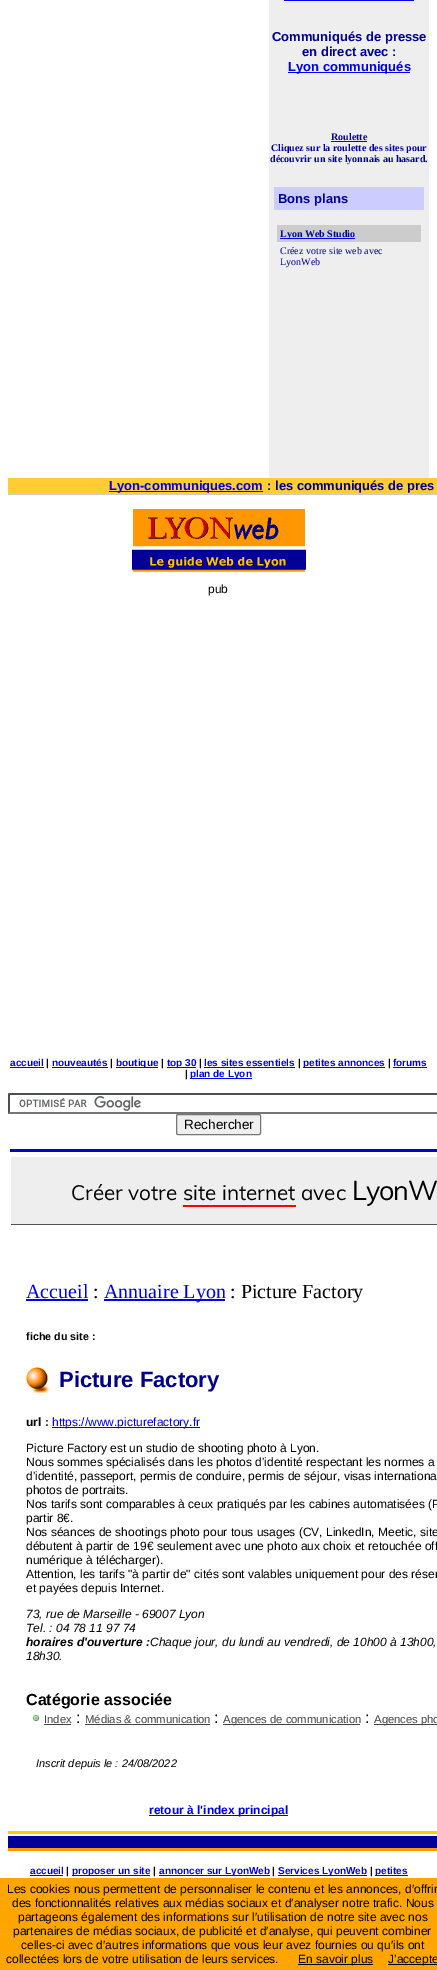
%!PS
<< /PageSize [437 1970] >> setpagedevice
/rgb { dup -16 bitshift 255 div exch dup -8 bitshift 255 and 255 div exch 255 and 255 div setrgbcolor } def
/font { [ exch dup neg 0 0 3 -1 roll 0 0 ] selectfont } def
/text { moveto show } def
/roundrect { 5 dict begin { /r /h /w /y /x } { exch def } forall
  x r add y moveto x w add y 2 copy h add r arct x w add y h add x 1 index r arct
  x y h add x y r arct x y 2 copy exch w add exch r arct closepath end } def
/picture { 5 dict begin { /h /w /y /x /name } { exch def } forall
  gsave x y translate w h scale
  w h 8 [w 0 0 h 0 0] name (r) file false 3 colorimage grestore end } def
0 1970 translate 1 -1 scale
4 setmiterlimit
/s1 { /LiberationSans-Bold 13 font 16#000099 rgb } def
/s2 { /LiberationSans-Bold 13 font 16#0000EE rgb } def
/s3 { /LiberationSerif-Bold 10 font 16#000099 rgb } def
/s4 { /LiberationSerif-Regular 10 font 16#000099 rgb } def
/s5 { /LiberationSans-Regular 12 font 16#000000 rgb } def
/s6 { /LiberationSans-Bold 10 font 16#0000EE rgb } def
/s7 { /LiberationSans-Bold 10 font 16#000000 rgb } def
/s8 { /LiberationSans-Regular 13.5 font 16#000000 rgb } def
/s9 { /Muli-Regular 20.75 font 16#000000 rgb } def
/s10 { /LiberationSerif-Regular 20 font 16#0000EE rgb } def
/s11 { /LiberationSerif-Regular 20 font 16#000000 rgb } def
/s12 { /LiberationSans-Bold 10.75 font 16#000000 rgb } def
/s13 { /LiberationSans-Bold 22 font 16#00008B rgb } def
/s14 { /LiberationSans-Bold 12 font 16#000000 rgb } def
/s15 { /LiberationSans-Regular 12 font 16#0000EE rgb } def
/s16 { /LiberationSans-Italic 12 font 16#000000 rgb } def
/s17 { /LiberationSans-BoldItalic 12 font 16#000000 rgb } def
/s18 { /LiberationSans-Bold 16 font 16#000000 rgb } def
/s19 { /LiberationSans-Regular 11.25 font 16#444444 rgb } def
/s20 { /LiberationSans-Regular 16 font 16#000000 rgb } def
/s21 { /LiberationSans-Italic 11 font 16#000000 rgb } def
/s22 { /LiberationSans-Bold 12 font 16#0000EE rgb } def
16#FFFFFF rgb
0 0 437 1970 rectfill
16#EEEEEE rgb
269 0 160 478 rectfill
16#0000EE rgb
284 0 130 1 rectfill
s1
(Communiqués de presse) 272 41 text
(en direct avec :) 302 56 text
16#0000EE rgb
288 72 122 1 rectfill
(Lyon communiqués) 288 71 text
s3
(Roulette) 331 140 text
16#0000EE rgb
331 141 36 1 rectfill
s3
(Cliquez sur la roulette des sites pour) 271 151 text
(découvrir un site lyonnais au hasard.) 270 162 text
16#CCCCFF rgb
274 187 150 23 rectfill
s1
(Bons plans) 278 203 text
16#CCCCCC rgb
277 225 144 17 rectfill
16#0000EE rgb
280 238 75 1 rectfill
s3
(Lyon Web Studio) 280 237 text
s4
(Créez votre site web avec) 280 254 text
(LyonWeb) 280 265 text
16#FFCC33 rgb
8 478 429 15 rectfill
16#0000EE rgb
109 491 154 1 rectfill
s2
(Lyon-communiques.com) 109 490 text
s1
(: les communiqués de pres) 267 490 text
16#CCCCCC rgb
8 493 429 2 rectfill
(pic1.raw) 132 509 174 63 picture
s5
(pub) 208 593 text
s6
(accueil) 10 1066 text
10 1067 34 1 rectfill
s7
(|) 46 1066 text
s6
(nouveautés) 52 1066 text
52 1067 56 1 rectfill
s7
(|) 110 1066 text
16#0000EE rgb
116 1067 42 1 rectfill
(boutique) 116 1066 text
s7
(|) 161 1066 text
16#0000EE rgb
167 1067 29 1 rectfill
(top 30) 167 1066 text
s7
(|) 199 1066 text
s6
(les sites essentiels) 204 1066 text
204 1067 91 1 rectfill
s7
(|) 298 1066 text
16#0000EE rgb
303 1067 82 1 rectfill
(petites annonces) 303 1066 text
s7
(|) 388 1066 text
s6
(forums) 393 1066 text
393 1067 34 1 rectfill
s7
(|) 185 1077 text
16#0000EE rgb
190 1078 62 1 rectfill
(plan de Lyon) 190 1077 text
(pic2.raw) 19 1096 122 15 picture
16#4F4F4F rgb
8 1093 moveto 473 1093 lineto 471 1095 lineto 10 1095 lineto closepath fill
16#767676 rgb
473 1114 moveto 8 1114 lineto 10 1112 lineto 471 1112 lineto closepath fill
16#4F4F4F rgb
8 1114 moveto 8 1093 lineto 10 1095 lineto 10 1112 lineto closepath fill
16#EFEFEF rgb
176.5 1114.5 84 20 1.5 roundrect gsave fill grestore
16#767676 rgb
stroke
s8
(Rechercher) 184 1129 text
16#0000CC rgb
10 1149 427 3 rectfill
16#EEEEEE rgb
11 1157 426 67 rectfill
16#555555 rgb
11 1224 426 1 rectfill
s9
(Créer votre site internet avec) 71 1200 text
16#FF0000 rgb
183 1205 113 2 rectfill
/Muli-Regular 27 font
16#000000 rgb
352 1200 moveto -1 0 (LyonW) ashow
s10
(Accueil) 26 1298 text
26 1299 62 2 rectfill
s11
(:) 93 1298 text
16#0000EE rgb
104 1299 121 2 rectfill
(Annuaire Lyon) 104 1298 text
s11
(: Picture Factory) 230 1298 text
s12
(fiche du site :) 26 1340 text
(pic3.raw) 26 1367 23 26 picture
s13
(Picture Factory) 59 1387 text
s14
(url :) 26 1426 text
16#0000EE rgb
52 1427 148 1 rectfill
s15
(https://www.picturefactory.fr) 52 1426 text
s5
(Picture Factory est un studio de shooting photo à Lyon.) 26 1452 text
(Nous sommes spécialisés dans les photos d'identité respectant les normes a) 26 1466 text
(d'identité, passeport, permis de conduire, permis de séjour, visas internationa) 26 1480 text
(photos de portraits.) 26 1494 text
(Nos tarifs sont comparables à ceux pratiqués par les cabines automatisées \(P) 26 1508 text
(partir 8€.) 26 1522 text
(Nos séances de shootings photo pour tous usages \(CV, LinkedIn, Meetic, site) 26 1536 text
(débutent à partir de 19€ seulement avec une photo aux choix et retouchée off) 26 1550 text
(numérique à télécharger\).) 26 1564 text
(Attention, les tarifs "à partir de" cités sont valables uniquement pour des réser) 26 1578 text
(et payées depuis Internet.) 26 1592 text
s16
(73, rue de Marseille - 69007 Lyon) 26 1618 text
(Tel. : 04 78 11 97 74) 26 1632 text
s17
(horaires d'ouverture :) 26 1646 text
s16
(Chaque jour, du lundi au vendredi, de 10h00 à 13h00,) 150 1646 text
(18h30.) 26 1660 text
s18
(Catégorie associée) 26 1705 text
(pic4.raw) 33 1715 6 6 picture
s19
(Index) 44 1723 text
44 1724 27 1 rectfill
s20
(:) 76 1723 text
s19
(Médias & communication) 85 1723 text
85 1724 125 1 rectfill
s20
(:) 214 1723 text
16#444444 rgb
223 1724 137 1 rectfill
s19
(Agences de communication) 223 1723 text
s20
(:) 365 1723 text
16#444444 rgb
374 1724 63 1 rectfill
s19
(Agences pho) 374 1723 text
s21
(Inscrit depuis le : 24/08/2022) 36 1767 text
16#0000EE rgb
149 1815 139 1 rectfill
s22
(retour à l'index principal) 149 1814 text
16#FFCC00 rgb
8 1831 429 3 rectfill
16#FFFFF0 rgb
8 1834 429 2 rectfill
16#000099 rgb
8 1836 429 12 rectfill
16#FF9900 rgb
8 1848 429 3 rectfill
s6
(accueil) 30 1874 text
30 1875 33 1 rectfill
s7
(|) 66 1874 text
16#0000EE rgb
72 1875 78 1 rectfill
(proposer un site) 72 1874 text
s7
(|) 153 1874 text
16#0000EE rgb
159 1875 111 1 rectfill
(annoncer sur LyonWeb) 159 1874 text
s7
(|) 272 1874 text
16#0000EE rgb
278 1875 89 1 rectfill
(Services LyonWeb) 278 1874 text
s7
(|) 370 1874 text
16#0000EE rgb
375 1875 33 1 rectfill
(petites) 375 1874 text
16#FFA500 rgb
0 1878 437 92 rectfill
s5
(Les cookies nous permettent de personnaliser le contenu et les annonces, d′offrir) 7 1893 text
(des fonctionnalités relatives aux médias sociaux et d′analyser notre trafic. Nous) 12 1907 text
(partageons également des informations sur l′utilisation de notre site avec nos) 18 1921 text
(partenaires de médias sociaux, de publicité et d′analyse, qui peuvent combiner) 13 1935 text
(celles-ci avec d′autres informations que vous leur avez fournies ou qu′ils ont) 21 1949 text
(collectées lors de votre utilisation de leurs services.) 6 1963 text
298 1964 75 1 rectfill
(En savoir plus) 298 1963 text
388 1964 49 1 rectfill
(J’accepte) 388 1963 text
showpage
